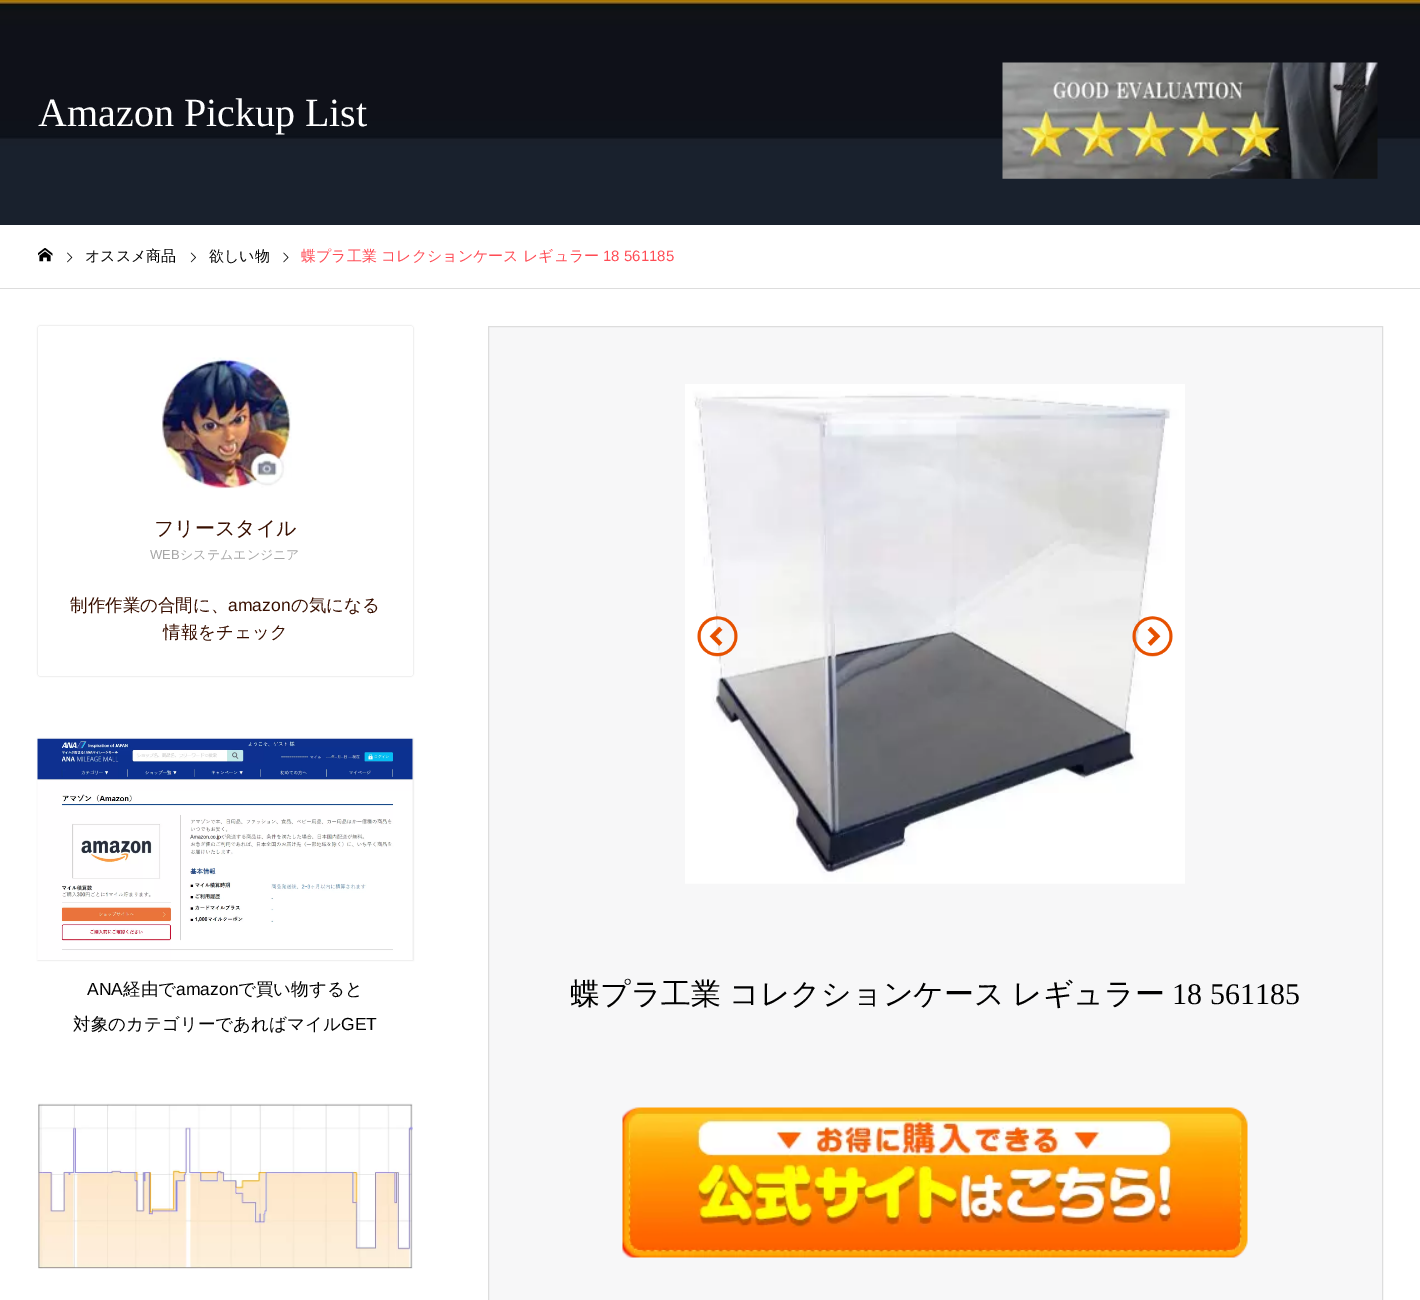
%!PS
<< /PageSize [1420 1300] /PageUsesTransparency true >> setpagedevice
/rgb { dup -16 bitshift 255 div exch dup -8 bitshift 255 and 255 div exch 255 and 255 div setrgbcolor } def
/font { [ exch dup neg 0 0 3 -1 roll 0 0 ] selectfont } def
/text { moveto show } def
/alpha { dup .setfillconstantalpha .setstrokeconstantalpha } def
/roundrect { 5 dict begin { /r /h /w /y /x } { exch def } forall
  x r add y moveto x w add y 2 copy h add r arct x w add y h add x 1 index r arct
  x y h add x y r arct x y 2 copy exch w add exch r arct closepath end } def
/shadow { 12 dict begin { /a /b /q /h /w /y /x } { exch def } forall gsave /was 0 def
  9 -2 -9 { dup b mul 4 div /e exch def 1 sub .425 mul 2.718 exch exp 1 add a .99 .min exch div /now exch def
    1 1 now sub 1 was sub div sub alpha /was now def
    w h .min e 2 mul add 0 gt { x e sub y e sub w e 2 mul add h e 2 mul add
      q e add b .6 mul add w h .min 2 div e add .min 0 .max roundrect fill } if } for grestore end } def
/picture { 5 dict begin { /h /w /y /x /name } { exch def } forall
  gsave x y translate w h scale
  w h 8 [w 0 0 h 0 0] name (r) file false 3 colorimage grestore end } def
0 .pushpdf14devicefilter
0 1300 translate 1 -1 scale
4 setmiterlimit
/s1 { /LiberationSerif-Regular 40 font 16#FFFFFF rgb } def
/s2 { /WenQuanYiZenHei-Medium 15 font 16#000000 rgb } def
/s3 { /WenQuanYiZenHei-Medium 15 font 16#FF4B54 rgb } def
/s4 { /LiberationSans-Regular 15 font 16#FF4B54 rgb } def
/s5 { /WenQuanYiZenHei-Medium 20 font 16#380F00 rgb } def
/s6 { /LiberationSans-Regular 13 font 16#A6A6A6 rgb } def
/s7 { /WenQuanYiZenHei-Medium 13 font 16#A6A6A6 rgb } def
/s8 { /WenQuanYiZenHei-Medium 17.5 font 16#380F00 rgb } def
/s9 { /LiberationSans-Regular 17.5 font 16#380F00 rgb } def
/s10 { /LiberationSans-Regular 17.5 font 16#000000 rgb } def
/s11 { /WenQuanYiZenHei-Medium 17.5 font 16#000000 rgb } def
/s12 { /WenQuanYiZenHei-Medium 30 font 16#000000 rgb } def
/s13 { /LiberationSerif-Regular 30 font 16#000000 rgb } def
16#FFFFFF rgb
0 0 1420 1300 rectfill
(pic1.raw) 0 0 1420 225 picture
s1
(Amazon Pickup List) 38 126 text
(pic2.raw) 1002 62 376 117 picture
16#DDDDDD rgb
0 288 1420 1 rectfill
(pic3.raw) 38 248 15 14 picture
(pic4.raw) 67 252 6 11 picture
s2
(オススメ商品) 85 261 text
(pic5.raw) 190 252 6 11 picture
(欲しい物) 209 261 text
(pic6.raw) 283 252 6 11 picture
s3
(蝶プラ工業) 301 261 text
(コレクションケース) 381 261 text
(レギュラー) 523 261 text
s4
(18 561185) 603 261 text
16#000000 rgb
38 326 375 350 2.5 1 0.18 shadow
16#FFFFFF rgb
38 326 375 350 2.5 roundrect fill
(pic7.raw) 161 357 131 132 picture
s5
(フリースタイル) 154 535 text
s6
(WEB) 150 559 text
s7
(システムエンジニア) 180 559 text
s8
(制作作業の合間に、) 70 611 text
s9
(amazon) 228 611 text
s8
(の気になる) 291 611 text
(情報をチェック) 163 638 text
16#000000 rgb
38 739 375 221 0 1 0.18 shadow
(pic8.raw) 37 738 376 222 picture
s10
(ANA) 87 995 text
s11
(経由で) 123 995 text
s10
(amazon) 176 995 text
s11
(で買い物すると) 238 995 text
(対象のカテゴリーであればマイル) 73 1030 text
s10
(GET) 341 1030 text
(pic9.raw) 38 1103 375 166 picture
16#F7F7F8 rgb
488.5 326.5 moveto 1382.5 326.5 lineto 1382.5 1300.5 lineto 488.5 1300.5 lineto closepath gsave fill grestore
16#DDDDDD rgb
stroke
(pic10.raw) 685 384 500 500 picture
(pic11.raw) 697 616 41 41 picture
(pic12.raw) 1132 616 41 41 picture
s12
(蝶プラ工業) 570 1004 text
(コレクションケース) 729 1004 text
(レギュラー) 1012 1004 text
s13
(18 561185) 1172 1004 text
(pic13.raw) 622 1107 626 151 picture
.poppdf14devicefilter showpage
